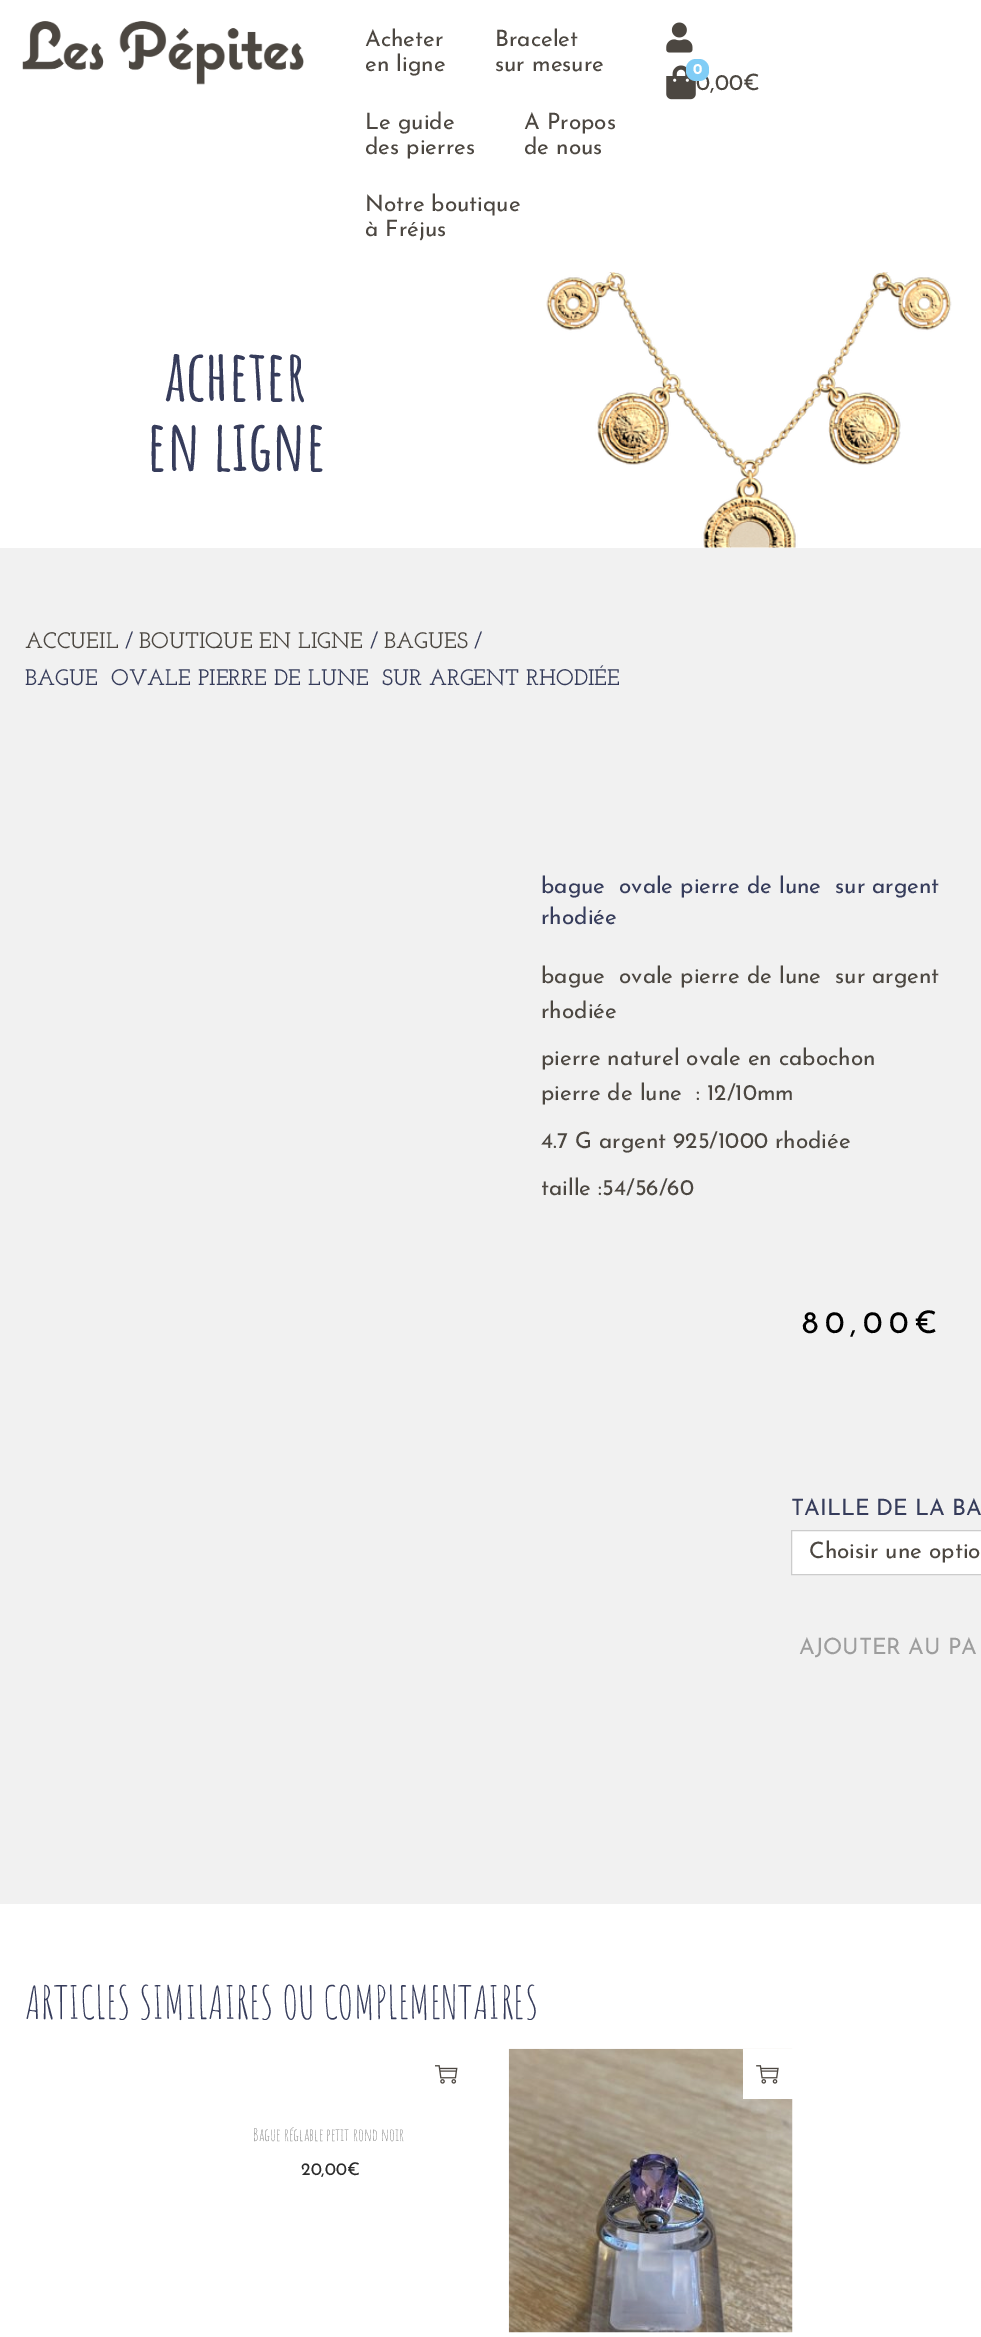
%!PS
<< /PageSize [981 2337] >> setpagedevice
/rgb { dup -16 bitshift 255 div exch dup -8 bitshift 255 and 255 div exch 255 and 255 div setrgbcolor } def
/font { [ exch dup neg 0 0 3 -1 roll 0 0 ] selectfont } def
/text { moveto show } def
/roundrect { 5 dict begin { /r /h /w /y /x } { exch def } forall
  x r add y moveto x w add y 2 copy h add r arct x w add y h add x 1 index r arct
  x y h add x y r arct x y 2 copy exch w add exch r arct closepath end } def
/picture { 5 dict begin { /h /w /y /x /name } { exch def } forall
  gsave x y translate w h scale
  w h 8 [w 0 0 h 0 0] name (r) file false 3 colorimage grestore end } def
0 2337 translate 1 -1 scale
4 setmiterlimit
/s1 { /JosefinSans-Regular 22.5 font 16#4C4741 rgb } def
/s2 { /JosefinSans-Bold 15 font 16#FFFFFF rgb } def
/s3 { /AmaticSC-Bold 70 font 16#363C5B rgb } def
/s4 { /JosefinSlab-SemiBold 22.5 font 16#4C4741 rgb } def
/s5 { /JosefinSlab-SemiBold 22.5 font 16#363C5B rgb } def
/s6 { /JosefinSans-Regular 22.5 font 16#363C5B rgb } def
/s7 { /JosefinSans-Regular 22.5 font 16#9D9D9D rgb } def
/s8 { /AmaticSC-Regular 45 font 16#363C5B rgb } def
/s9 { /AmaticSC-Regular 17.5 font 16#8F8F8F rgb } def
/s10 { /JosefinSans-Regular 17.5 font 16#2B2B2B rgb } def
16#FFFFFF rgb
0 0 981 2337 rectfill
(pic1.raw) 22 21 282 64 picture
s1
(Acheter) 365 46 text
(en ligne) 365 71 text
(Bracelet) 495 46 text
(sur mesure) 495 71 text
(Le guide) 365 129 text
(des pierres) 365 154 text
(A Propos) 524 129 text
(de nous) 524 154 text
(Notre boutique) 365 211 text
(à Fréjus) 365 236 text
(pic2.raw) 666 22 27 31 picture
(pic3.raw) 666 65 30 35 picture
(0,00€) 696 90 text
16#81CDF6 rgb
686 59 23 22 10 roundrect fill
s2
(0) 693 74 text
(pic4.raw) 546 272 406 276 picture
s3
(acheter) 165 401 text
(en ligne) 147 471 text
16#F1F1F1 rgb
0 548 981 1356 rectfill
s4
(ACCUEIL) 25 648 text
s5
(/) 125 648 text
s4
(BOUTIQUE EN LIGNE) 139 648 text
s5
(/) 370 648 text
s4
(BAGUES) 384 648 text
s5
(/) 474 648 text
(BAGUE  OVALE PIERRE DE LUNE  SUR ARGENT RHODIÉE) 25 685 text
s6
(bague  ovale pierre de lune  sur argent) 541 893 text
(rhodiée) 541 924 text
s1
(bague  ovale pierre de lune  sur argent) 541 983 text
(rhodiée) 541 1018 text
(pierre naturel ovale en cabochon) 541 1065 text
(pierre de lune  : 12/10mm) 541 1100 text
(4.7 G argent 925/1000 rhodiée) 541 1148 text
(taille :54/56/60) 541 1195 text
/JosefinSans-Regular 31.25 font
16#000000 rgb
802 1333 moveto 6.25 0 (80,00€) ashow
s6
(TAILLE DE LA BA) 791 1515 text
16#FFFFFF rgb
791.5 1530.5 moveto 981.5 1530.5 lineto 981.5 1574.5 lineto 791.5 1574.5 lineto closepath gsave fill grestore
16#CCCCCC rgb
stroke
s1
(Choisir une optio) 809 1558 text
s7
(AJOUTER AU PA) 799 1654 text
s8
(ARTICLES SIMILAIRES OU COMPLEMENTAIRES) 25 2019 text
(pic5.raw) 435 2065 23 19 picture
s9
(Bague réglable petit rond noir) 253 2141 text
s10
(20,00€) 301 2175 text
(pic6.raw) 508 2048 285 285 picture
16#FFFFFF rgb
743 2049 50 50 rectfill
(pic7.raw) 756 2065 23 19 picture
showpage
